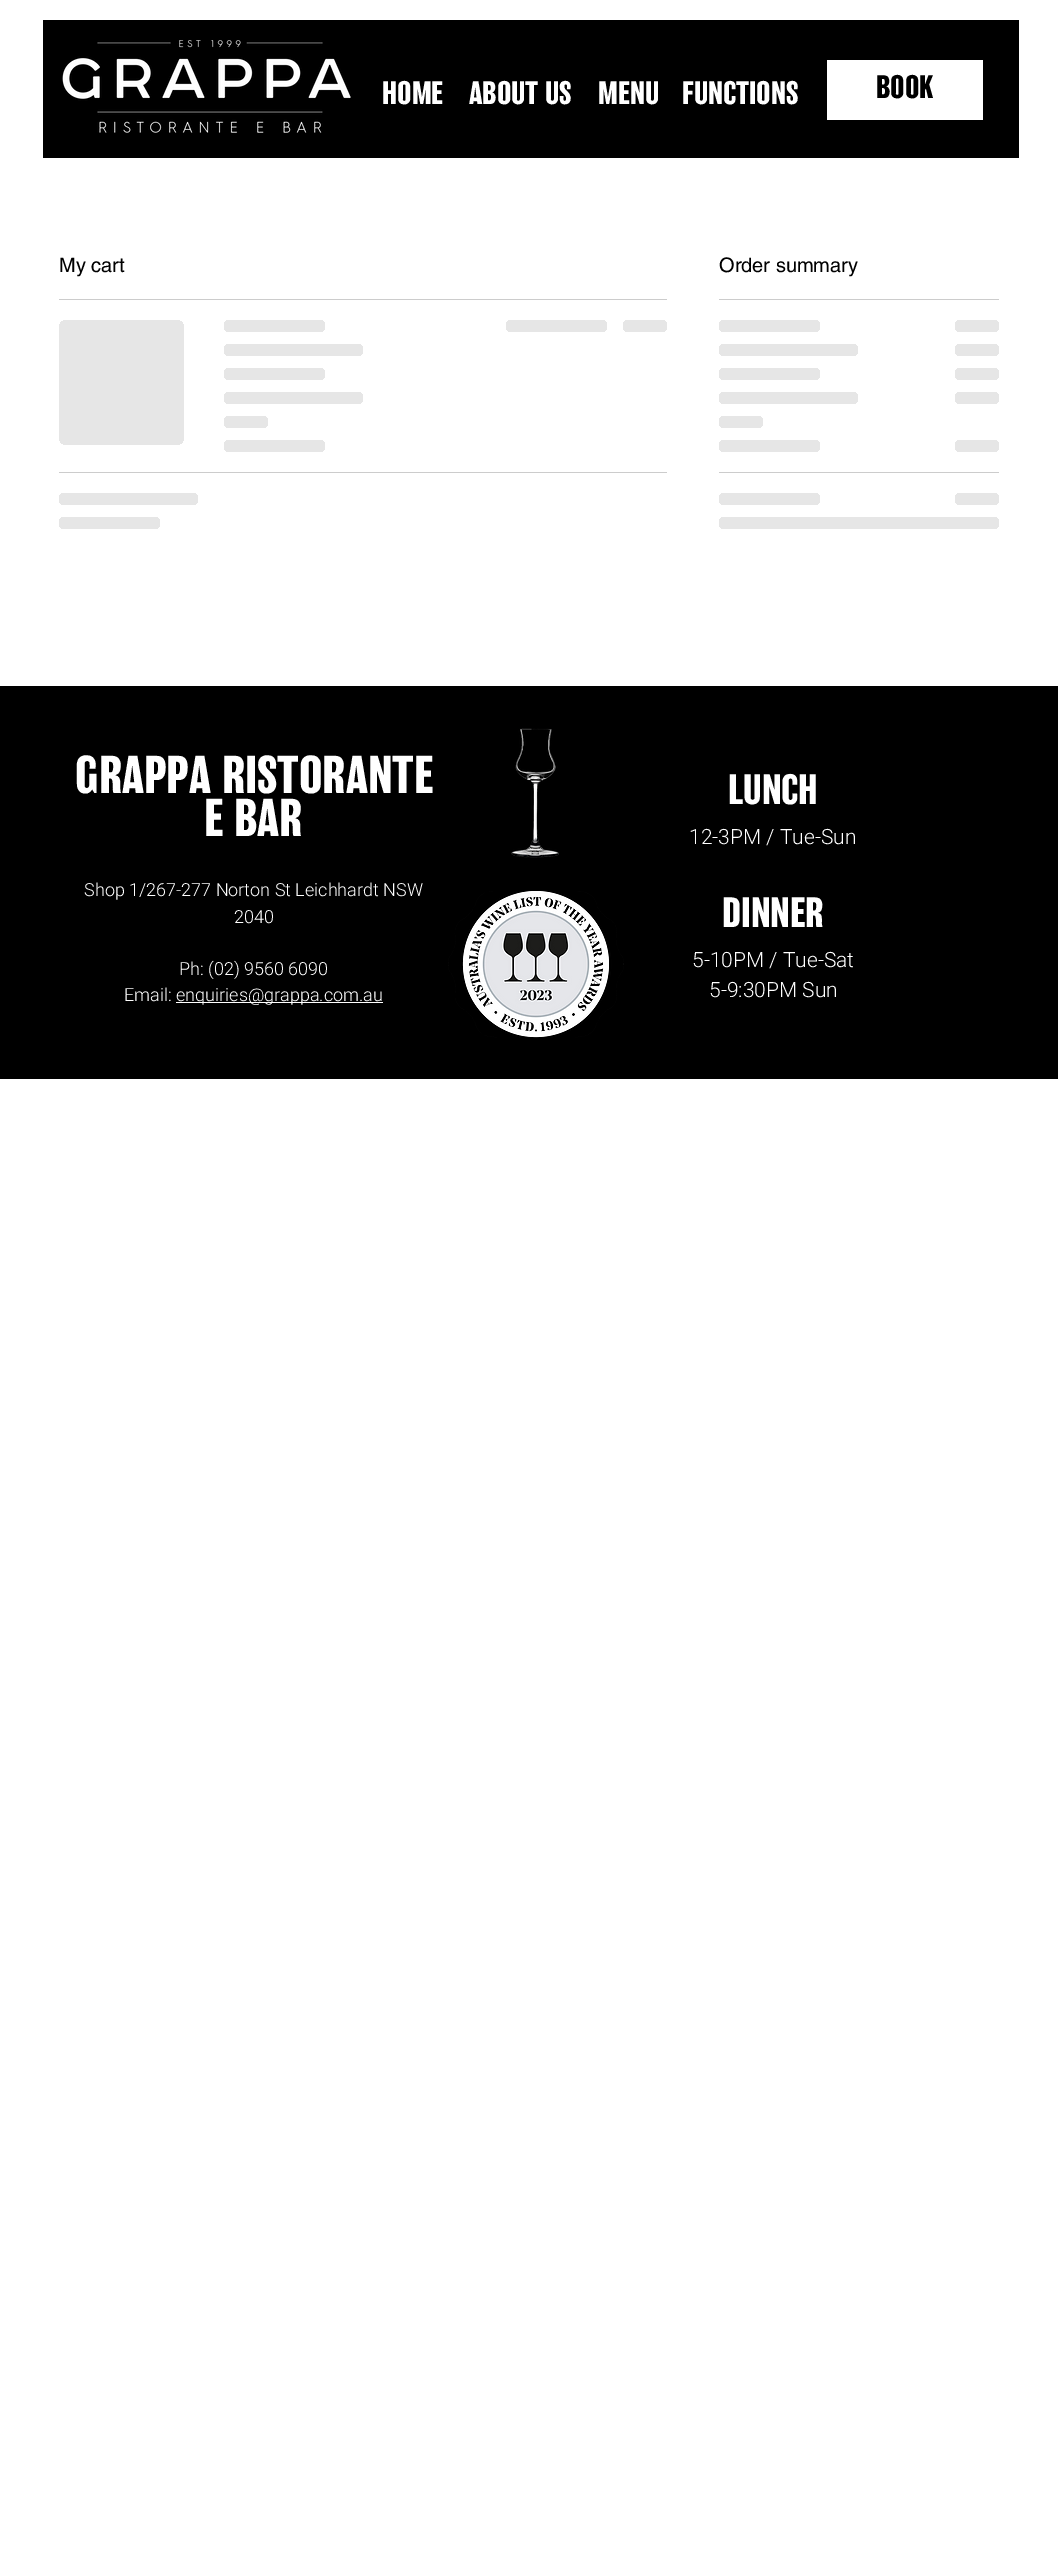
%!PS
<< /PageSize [1058 2556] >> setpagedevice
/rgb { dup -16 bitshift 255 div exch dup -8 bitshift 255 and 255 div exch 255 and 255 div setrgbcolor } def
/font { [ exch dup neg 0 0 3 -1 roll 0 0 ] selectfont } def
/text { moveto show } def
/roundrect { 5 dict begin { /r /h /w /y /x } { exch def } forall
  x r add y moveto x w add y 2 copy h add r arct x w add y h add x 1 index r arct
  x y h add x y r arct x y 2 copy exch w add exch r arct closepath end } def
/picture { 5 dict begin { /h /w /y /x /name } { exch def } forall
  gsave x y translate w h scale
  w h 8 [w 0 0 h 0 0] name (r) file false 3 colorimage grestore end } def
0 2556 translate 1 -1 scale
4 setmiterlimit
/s1 { /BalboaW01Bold-Bold 30 font 16#FFFFFF rgb } def
/s2 { /BalboaW01Bold-Bold 30 font 16#000000 rgb } def
/s3 { /helvetica-Regular 20 font 16#000000 rgb } def
/s4 { /BalboaW01Bold-Bold 49 font 16#FFFFFF rgb } def
/s5 { /Heebo-Light 18 font 16#FFFFFF rgb } def
/s6 { /BalboaW01Bold-Bold 39 font 16#FFFFFF rgb } def
/s7 { /Heebo-Light 21 font 16#FFFFFF rgb } def
16#FFFFFF rgb
0 0 1058 2556 rectfill
16#000000 rgb
43 20 976 138 rectfill
(pic1.raw) 62 40 289 93 picture
s1
(HOME) 382 104 text
(ABOUT US) 469 104 text
(MENU) 598 104 text
(FUNCTIONS) 682 104 text
827 60 156 60 rectfill
s2
(BOOK) 876 98 text
16#CCCCCC rgb
59 299 608 1 rectfill
s3
(My cart) 59 272 text
gsave 59 320 125 125 8 roundrect clip newpath
<< /ShadingType 2 /ColorSpace /DeviceRGB /Coords [59 383 559 383] /Extend [true true] /Function << /FunctionType 3 /Domain [0 1] /Functions [<< /FunctionType 2 /Domain [0 1] /C0 [0.902 0.902 0.902] /C1 [0.902 0.902 0.902] /N 1 >> << /FunctionType 2 /Domain [0 1] /C0 [0.902 0.902 0.902] /C1 [0.8 0.8 0.8] /N 1 >> << /FunctionType 2 /Domain [0 1] /C0 [0.8 0.8 0.8] /C1 [0.902 0.902 0.902] /N 1 >> << /FunctionType 2 /Domain [0 1] /C0 [0.902 0.902 0.902] /C1 [0.902 0.902 0.902] /N 1 >>] /Bounds [0.25 0.37 0.63] /Encode [0 1 0 1 0 1 0 1] >> >> shfill grestore
gsave 224 320 101 12 6 roundrect clip newpath
<< /ShadingType 2 /ColorSpace /DeviceRGB /Coords [224 326 628 326] /Extend [true true] /Function << /FunctionType 3 /Domain [0 1] /Functions [<< /FunctionType 2 /Domain [0 1] /C0 [0.902 0.902 0.902] /C1 [0.902 0.902 0.902] /N 1 >> << /FunctionType 2 /Domain [0 1] /C0 [0.902 0.902 0.902] /C1 [0.8 0.8 0.8] /N 1 >> << /FunctionType 2 /Domain [0 1] /C0 [0.8 0.8 0.8] /C1 [0.902 0.902 0.902] /N 1 >> << /FunctionType 2 /Domain [0 1] /C0 [0.902 0.902 0.902] /C1 [0.902 0.902 0.902] /N 1 >>] /Bounds [0.25 0.37 0.63] /Encode [0 1 0 1 0 1 0 1] >> >> shfill grestore
gsave 224 344 139 12 6 roundrect clip newpath
<< /ShadingType 2 /ColorSpace /DeviceRGB /Coords [224 350 780 350] /Extend [true true] /Function << /FunctionType 3 /Domain [0 1] /Functions [<< /FunctionType 2 /Domain [0 1] /C0 [0.902 0.902 0.902] /C1 [0.902 0.902 0.902] /N 1 >> << /FunctionType 2 /Domain [0 1] /C0 [0.902 0.902 0.902] /C1 [0.8 0.8 0.8] /N 1 >> << /FunctionType 2 /Domain [0 1] /C0 [0.8 0.8 0.8] /C1 [0.902 0.902 0.902] /N 1 >> << /FunctionType 2 /Domain [0 1] /C0 [0.902 0.902 0.902] /C1 [0.902 0.902 0.902] /N 1 >>] /Bounds [0.25 0.37 0.63] /Encode [0 1 0 1 0 1 0 1] >> >> shfill grestore
gsave 224 368 101 12 6 roundrect clip newpath
<< /ShadingType 2 /ColorSpace /DeviceRGB /Coords [224 374 628 374] /Extend [true true] /Function << /FunctionType 3 /Domain [0 1] /Functions [<< /FunctionType 2 /Domain [0 1] /C0 [0.902 0.902 0.902] /C1 [0.902 0.902 0.902] /N 1 >> << /FunctionType 2 /Domain [0 1] /C0 [0.902 0.902 0.902] /C1 [0.8 0.8 0.8] /N 1 >> << /FunctionType 2 /Domain [0 1] /C0 [0.8 0.8 0.8] /C1 [0.902 0.902 0.902] /N 1 >> << /FunctionType 2 /Domain [0 1] /C0 [0.902 0.902 0.902] /C1 [0.902 0.902 0.902] /N 1 >>] /Bounds [0.25 0.37 0.63] /Encode [0 1 0 1 0 1 0 1] >> >> shfill grestore
gsave 224 392 139 12 6 roundrect clip newpath
<< /ShadingType 2 /ColorSpace /DeviceRGB /Coords [224 398 780 398] /Extend [true true] /Function << /FunctionType 3 /Domain [0 1] /Functions [<< /FunctionType 2 /Domain [0 1] /C0 [0.902 0.902 0.902] /C1 [0.902 0.902 0.902] /N 1 >> << /FunctionType 2 /Domain [0 1] /C0 [0.902 0.902 0.902] /C1 [0.8 0.8 0.8] /N 1 >> << /FunctionType 2 /Domain [0 1] /C0 [0.8 0.8 0.8] /C1 [0.902 0.902 0.902] /N 1 >> << /FunctionType 2 /Domain [0 1] /C0 [0.902 0.902 0.902] /C1 [0.902 0.902 0.902] /N 1 >>] /Bounds [0.25 0.37 0.63] /Encode [0 1 0 1 0 1 0 1] >> >> shfill grestore
gsave 224 416 44 12 6 roundrect clip newpath
<< /ShadingType 2 /ColorSpace /DeviceRGB /Coords [224 422 400 422] /Extend [true true] /Function << /FunctionType 3 /Domain [0 1] /Functions [<< /FunctionType 2 /Domain [0 1] /C0 [0.902 0.902 0.902] /C1 [0.902 0.902 0.902] /N 1 >> << /FunctionType 2 /Domain [0 1] /C0 [0.902 0.902 0.902] /C1 [0.8 0.8 0.8] /N 1 >> << /FunctionType 2 /Domain [0 1] /C0 [0.8 0.8 0.8] /C1 [0.902 0.902 0.902] /N 1 >> << /FunctionType 2 /Domain [0 1] /C0 [0.902 0.902 0.902] /C1 [0.902 0.902 0.902] /N 1 >>] /Bounds [0.25 0.37 0.63] /Encode [0 1 0 1 0 1 0 1] >> >> shfill grestore
gsave 224 440 101 12 6 roundrect clip newpath
<< /ShadingType 2 /ColorSpace /DeviceRGB /Coords [224 446 628 446] /Extend [true true] /Function << /FunctionType 3 /Domain [0 1] /Functions [<< /FunctionType 2 /Domain [0 1] /C0 [0.902 0.902 0.902] /C1 [0.902 0.902 0.902] /N 1 >> << /FunctionType 2 /Domain [0 1] /C0 [0.902 0.902 0.902] /C1 [0.8 0.8 0.8] /N 1 >> << /FunctionType 2 /Domain [0 1] /C0 [0.8 0.8 0.8] /C1 [0.902 0.902 0.902] /N 1 >> << /FunctionType 2 /Domain [0 1] /C0 [0.902 0.902 0.902] /C1 [0.902 0.902 0.902] /N 1 >>] /Bounds [0.25 0.37 0.63] /Encode [0 1 0 1 0 1 0 1] >> >> shfill grestore
gsave 506 320 101 12 6 roundrect clip newpath
<< /ShadingType 2 /ColorSpace /DeviceRGB /Coords [506 326 910 326] /Extend [true true] /Function << /FunctionType 3 /Domain [0 1] /Functions [<< /FunctionType 2 /Domain [0 1] /C0 [0.902 0.902 0.902] /C1 [0.902 0.902 0.902] /N 1 >> << /FunctionType 2 /Domain [0 1] /C0 [0.902 0.902 0.902] /C1 [0.8 0.8 0.8] /N 1 >> << /FunctionType 2 /Domain [0 1] /C0 [0.8 0.8 0.8] /C1 [0.902 0.902 0.902] /N 1 >> << /FunctionType 2 /Domain [0 1] /C0 [0.902 0.902 0.902] /C1 [0.902 0.902 0.902] /N 1 >>] /Bounds [0.25 0.37 0.63] /Encode [0 1 0 1 0 1 0 1] >> >> shfill grestore
gsave 623 320 44 12 6 roundrect clip newpath
<< /ShadingType 2 /ColorSpace /DeviceRGB /Coords [623 326 799 326] /Extend [true true] /Function << /FunctionType 3 /Domain [0 1] /Functions [<< /FunctionType 2 /Domain [0 1] /C0 [0.902 0.902 0.902] /C1 [0.902 0.902 0.902] /N 1 >> << /FunctionType 2 /Domain [0 1] /C0 [0.902 0.902 0.902] /C1 [0.8 0.8 0.8] /N 1 >> << /FunctionType 2 /Domain [0 1] /C0 [0.8 0.8 0.8] /C1 [0.902 0.902 0.902] /N 1 >> << /FunctionType 2 /Domain [0 1] /C0 [0.902 0.902 0.902] /C1 [0.902 0.902 0.902] /N 1 >>] /Bounds [0.25 0.37 0.63] /Encode [0 1 0 1 0 1 0 1] >> >> shfill grestore
16#CCCCCC rgb
59 472 608 1 rectfill
gsave 59 493 139 12 6 roundrect clip newpath
<< /ShadingType 2 /ColorSpace /DeviceRGB /Coords [59 499 615 499] /Extend [true true] /Function << /FunctionType 3 /Domain [0 1] /Functions [<< /FunctionType 2 /Domain [0 1] /C0 [0.902 0.902 0.902] /C1 [0.902 0.902 0.902] /N 1 >> << /FunctionType 2 /Domain [0 1] /C0 [0.902 0.902 0.902] /C1 [0.8 0.8 0.8] /N 1 >> << /FunctionType 2 /Domain [0 1] /C0 [0.8 0.8 0.8] /C1 [0.902 0.902 0.902] /N 1 >> << /FunctionType 2 /Domain [0 1] /C0 [0.902 0.902 0.902] /C1 [0.902 0.902 0.902] /N 1 >>] /Bounds [0.25 0.37 0.63] /Encode [0 1 0 1 0 1 0 1] >> >> shfill grestore
gsave 59 517 101 12 6 roundrect clip newpath
<< /ShadingType 2 /ColorSpace /DeviceRGB /Coords [59 523 463 523] /Extend [true true] /Function << /FunctionType 3 /Domain [0 1] /Functions [<< /FunctionType 2 /Domain [0 1] /C0 [0.902 0.902 0.902] /C1 [0.902 0.902 0.902] /N 1 >> << /FunctionType 2 /Domain [0 1] /C0 [0.902 0.902 0.902] /C1 [0.8 0.8 0.8] /N 1 >> << /FunctionType 2 /Domain [0 1] /C0 [0.8 0.8 0.8] /C1 [0.902 0.902 0.902] /N 1 >> << /FunctionType 2 /Domain [0 1] /C0 [0.902 0.902 0.902] /C1 [0.902 0.902 0.902] /N 1 >>] /Bounds [0.25 0.37 0.63] /Encode [0 1 0 1 0 1 0 1] >> >> shfill grestore
719 299 280 1 rectfill
s3
(Order summary) 719 272 text
gsave 719 320 101 12 6 roundrect clip newpath
<< /ShadingType 2 /ColorSpace /DeviceRGB /Coords [719 326 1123 326] /Extend [true true] /Function << /FunctionType 3 /Domain [0 1] /Functions [<< /FunctionType 2 /Domain [0 1] /C0 [0.902 0.902 0.902] /C1 [0.902 0.902 0.902] /N 1 >> << /FunctionType 2 /Domain [0 1] /C0 [0.902 0.902 0.902] /C1 [0.8 0.8 0.8] /N 1 >> << /FunctionType 2 /Domain [0 1] /C0 [0.8 0.8 0.8] /C1 [0.902 0.902 0.902] /N 1 >> << /FunctionType 2 /Domain [0 1] /C0 [0.902 0.902 0.902] /C1 [0.902 0.902 0.902] /N 1 >>] /Bounds [0.25 0.37 0.63] /Encode [0 1 0 1 0 1 0 1] >> >> shfill grestore
gsave 955 320 44 12 6 roundrect clip newpath
<< /ShadingType 2 /ColorSpace /DeviceRGB /Coords [955 326 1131 326] /Extend [true true] /Function << /FunctionType 3 /Domain [0 1] /Functions [<< /FunctionType 2 /Domain [0 1] /C0 [0.902 0.902 0.902] /C1 [0.902 0.902 0.902] /N 1 >> << /FunctionType 2 /Domain [0 1] /C0 [0.902 0.902 0.902] /C1 [0.8 0.8 0.8] /N 1 >> << /FunctionType 2 /Domain [0 1] /C0 [0.8 0.8 0.8] /C1 [0.902 0.902 0.902] /N 1 >> << /FunctionType 2 /Domain [0 1] /C0 [0.902 0.902 0.902] /C1 [0.902 0.902 0.902] /N 1 >>] /Bounds [0.25 0.37 0.63] /Encode [0 1 0 1 0 1 0 1] >> >> shfill grestore
gsave 719 344 139 12 6 roundrect clip newpath
<< /ShadingType 2 /ColorSpace /DeviceRGB /Coords [719 350 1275 350] /Extend [true true] /Function << /FunctionType 3 /Domain [0 1] /Functions [<< /FunctionType 2 /Domain [0 1] /C0 [0.902 0.902 0.902] /C1 [0.902 0.902 0.902] /N 1 >> << /FunctionType 2 /Domain [0 1] /C0 [0.902 0.902 0.902] /C1 [0.8 0.8 0.8] /N 1 >> << /FunctionType 2 /Domain [0 1] /C0 [0.8 0.8 0.8] /C1 [0.902 0.902 0.902] /N 1 >> << /FunctionType 2 /Domain [0 1] /C0 [0.902 0.902 0.902] /C1 [0.902 0.902 0.902] /N 1 >>] /Bounds [0.25 0.37 0.63] /Encode [0 1 0 1 0 1 0 1] >> >> shfill grestore
gsave 955 344 44 12 6 roundrect clip newpath
<< /ShadingType 2 /ColorSpace /DeviceRGB /Coords [955 350 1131 350] /Extend [true true] /Function << /FunctionType 3 /Domain [0 1] /Functions [<< /FunctionType 2 /Domain [0 1] /C0 [0.902 0.902 0.902] /C1 [0.902 0.902 0.902] /N 1 >> << /FunctionType 2 /Domain [0 1] /C0 [0.902 0.902 0.902] /C1 [0.8 0.8 0.8] /N 1 >> << /FunctionType 2 /Domain [0 1] /C0 [0.8 0.8 0.8] /C1 [0.902 0.902 0.902] /N 1 >> << /FunctionType 2 /Domain [0 1] /C0 [0.902 0.902 0.902] /C1 [0.902 0.902 0.902] /N 1 >>] /Bounds [0.25 0.37 0.63] /Encode [0 1 0 1 0 1 0 1] >> >> shfill grestore
gsave 719 368 101 12 6 roundrect clip newpath
<< /ShadingType 2 /ColorSpace /DeviceRGB /Coords [719 374 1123 374] /Extend [true true] /Function << /FunctionType 3 /Domain [0 1] /Functions [<< /FunctionType 2 /Domain [0 1] /C0 [0.902 0.902 0.902] /C1 [0.902 0.902 0.902] /N 1 >> << /FunctionType 2 /Domain [0 1] /C0 [0.902 0.902 0.902] /C1 [0.8 0.8 0.8] /N 1 >> << /FunctionType 2 /Domain [0 1] /C0 [0.8 0.8 0.8] /C1 [0.902 0.902 0.902] /N 1 >> << /FunctionType 2 /Domain [0 1] /C0 [0.902 0.902 0.902] /C1 [0.902 0.902 0.902] /N 1 >>] /Bounds [0.25 0.37 0.63] /Encode [0 1 0 1 0 1 0 1] >> >> shfill grestore
gsave 955 368 44 12 6 roundrect clip newpath
<< /ShadingType 2 /ColorSpace /DeviceRGB /Coords [955 374 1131 374] /Extend [true true] /Function << /FunctionType 3 /Domain [0 1] /Functions [<< /FunctionType 2 /Domain [0 1] /C0 [0.902 0.902 0.902] /C1 [0.902 0.902 0.902] /N 1 >> << /FunctionType 2 /Domain [0 1] /C0 [0.902 0.902 0.902] /C1 [0.8 0.8 0.8] /N 1 >> << /FunctionType 2 /Domain [0 1] /C0 [0.8 0.8 0.8] /C1 [0.902 0.902 0.902] /N 1 >> << /FunctionType 2 /Domain [0 1] /C0 [0.902 0.902 0.902] /C1 [0.902 0.902 0.902] /N 1 >>] /Bounds [0.25 0.37 0.63] /Encode [0 1 0 1 0 1 0 1] >> >> shfill grestore
gsave 719 392 139 12 6 roundrect clip newpath
<< /ShadingType 2 /ColorSpace /DeviceRGB /Coords [719 398 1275 398] /Extend [true true] /Function << /FunctionType 3 /Domain [0 1] /Functions [<< /FunctionType 2 /Domain [0 1] /C0 [0.902 0.902 0.902] /C1 [0.902 0.902 0.902] /N 1 >> << /FunctionType 2 /Domain [0 1] /C0 [0.902 0.902 0.902] /C1 [0.8 0.8 0.8] /N 1 >> << /FunctionType 2 /Domain [0 1] /C0 [0.8 0.8 0.8] /C1 [0.902 0.902 0.902] /N 1 >> << /FunctionType 2 /Domain [0 1] /C0 [0.902 0.902 0.902] /C1 [0.902 0.902 0.902] /N 1 >>] /Bounds [0.25 0.37 0.63] /Encode [0 1 0 1 0 1 0 1] >> >> shfill grestore
gsave 955 392 44 12 6 roundrect clip newpath
<< /ShadingType 2 /ColorSpace /DeviceRGB /Coords [955 398 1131 398] /Extend [true true] /Function << /FunctionType 3 /Domain [0 1] /Functions [<< /FunctionType 2 /Domain [0 1] /C0 [0.902 0.902 0.902] /C1 [0.902 0.902 0.902] /N 1 >> << /FunctionType 2 /Domain [0 1] /C0 [0.902 0.902 0.902] /C1 [0.8 0.8 0.8] /N 1 >> << /FunctionType 2 /Domain [0 1] /C0 [0.8 0.8 0.8] /C1 [0.902 0.902 0.902] /N 1 >> << /FunctionType 2 /Domain [0 1] /C0 [0.902 0.902 0.902] /C1 [0.902 0.902 0.902] /N 1 >>] /Bounds [0.25 0.37 0.63] /Encode [0 1 0 1 0 1 0 1] >> >> shfill grestore
gsave 719 416 44 12 6 roundrect clip newpath
<< /ShadingType 2 /ColorSpace /DeviceRGB /Coords [719 422 895 422] /Extend [true true] /Function << /FunctionType 3 /Domain [0 1] /Functions [<< /FunctionType 2 /Domain [0 1] /C0 [0.902 0.902 0.902] /C1 [0.902 0.902 0.902] /N 1 >> << /FunctionType 2 /Domain [0 1] /C0 [0.902 0.902 0.902] /C1 [0.8 0.8 0.8] /N 1 >> << /FunctionType 2 /Domain [0 1] /C0 [0.8 0.8 0.8] /C1 [0.902 0.902 0.902] /N 1 >> << /FunctionType 2 /Domain [0 1] /C0 [0.902 0.902 0.902] /C1 [0.902 0.902 0.902] /N 1 >>] /Bounds [0.25 0.37 0.63] /Encode [0 1 0 1 0 1 0 1] >> >> shfill grestore
gsave 719 440 101 12 6 roundrect clip newpath
<< /ShadingType 2 /ColorSpace /DeviceRGB /Coords [719 446 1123 446] /Extend [true true] /Function << /FunctionType 3 /Domain [0 1] /Functions [<< /FunctionType 2 /Domain [0 1] /C0 [0.902 0.902 0.902] /C1 [0.902 0.902 0.902] /N 1 >> << /FunctionType 2 /Domain [0 1] /C0 [0.902 0.902 0.902] /C1 [0.8 0.8 0.8] /N 1 >> << /FunctionType 2 /Domain [0 1] /C0 [0.8 0.8 0.8] /C1 [0.902 0.902 0.902] /N 1 >> << /FunctionType 2 /Domain [0 1] /C0 [0.902 0.902 0.902] /C1 [0.902 0.902 0.902] /N 1 >>] /Bounds [0.25 0.37 0.63] /Encode [0 1 0 1 0 1 0 1] >> >> shfill grestore
gsave 955 440 44 12 6 roundrect clip newpath
<< /ShadingType 2 /ColorSpace /DeviceRGB /Coords [955 446 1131 446] /Extend [true true] /Function << /FunctionType 3 /Domain [0 1] /Functions [<< /FunctionType 2 /Domain [0 1] /C0 [0.902 0.902 0.902] /C1 [0.902 0.902 0.902] /N 1 >> << /FunctionType 2 /Domain [0 1] /C0 [0.902 0.902 0.902] /C1 [0.8 0.8 0.8] /N 1 >> << /FunctionType 2 /Domain [0 1] /C0 [0.8 0.8 0.8] /C1 [0.902 0.902 0.902] /N 1 >> << /FunctionType 2 /Domain [0 1] /C0 [0.902 0.902 0.902] /C1 [0.902 0.902 0.902] /N 1 >>] /Bounds [0.25 0.37 0.63] /Encode [0 1 0 1 0 1 0 1] >> >> shfill grestore
16#CCCCCC rgb
719 472 280 1 rectfill
gsave 719 493 101 12 6 roundrect clip newpath
<< /ShadingType 2 /ColorSpace /DeviceRGB /Coords [719 499 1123 499] /Extend [true true] /Function << /FunctionType 3 /Domain [0 1] /Functions [<< /FunctionType 2 /Domain [0 1] /C0 [0.902 0.902 0.902] /C1 [0.902 0.902 0.902] /N 1 >> << /FunctionType 2 /Domain [0 1] /C0 [0.902 0.902 0.902] /C1 [0.8 0.8 0.8] /N 1 >> << /FunctionType 2 /Domain [0 1] /C0 [0.8 0.8 0.8] /C1 [0.902 0.902 0.902] /N 1 >> << /FunctionType 2 /Domain [0 1] /C0 [0.902 0.902 0.902] /C1 [0.902 0.902 0.902] /N 1 >>] /Bounds [0.25 0.37 0.63] /Encode [0 1 0 1 0 1 0 1] >> >> shfill grestore
gsave 955 493 44 12 6 roundrect clip newpath
<< /ShadingType 2 /ColorSpace /DeviceRGB /Coords [955 499 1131 499] /Extend [true true] /Function << /FunctionType 3 /Domain [0 1] /Functions [<< /FunctionType 2 /Domain [0 1] /C0 [0.902 0.902 0.902] /C1 [0.902 0.902 0.902] /N 1 >> << /FunctionType 2 /Domain [0 1] /C0 [0.902 0.902 0.902] /C1 [0.8 0.8 0.8] /N 1 >> << /FunctionType 2 /Domain [0 1] /C0 [0.8 0.8 0.8] /C1 [0.902 0.902 0.902] /N 1 >> << /FunctionType 2 /Domain [0 1] /C0 [0.902 0.902 0.902] /C1 [0.902 0.902 0.902] /N 1 >>] /Bounds [0.25 0.37 0.63] /Encode [0 1 0 1 0 1 0 1] >> >> shfill grestore
gsave 719 517 280 12 6 roundrect clip newpath
<< /ShadingType 2 /ColorSpace /DeviceRGB /Coords [719 523 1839 523] /Extend [true true] /Function << /FunctionType 3 /Domain [0 1] /Functions [<< /FunctionType 2 /Domain [0 1] /C0 [0.902 0.902 0.902] /C1 [0.902 0.902 0.902] /N 1 >> << /FunctionType 2 /Domain [0 1] /C0 [0.902 0.902 0.902] /C1 [0.8 0.8 0.8] /N 1 >> << /FunctionType 2 /Domain [0 1] /C0 [0.8 0.8 0.8] /C1 [0.902 0.902 0.902] /N 1 >> << /FunctionType 2 /Domain [0 1] /C0 [0.902 0.902 0.902] /C1 [0.902 0.902 0.902] /N 1 >>] /Bounds [0.25 0.37 0.63] /Encode [0 1 0 1 0 1 0 1] >> >> shfill grestore
16#000000 rgb
0 686 1058 393 rectfill
s4
(GRAPPA RISTORANTE) 75 793 text
(E BAR) 204 836 text
s5
(Shop 1/267-277 Norton St Leichhardt NSW) 84 896 text
(2040) 234 923 text
(Ph: \(02\) 9560 6090) 179 975 text
(Email:) 124 1001 text
176 1002 207 1 rectfill
(enquiries@grappa.com.au) 176 1001 text
(pic2.raw) 511 728 48 130 picture
s6
(LUNCH) 728 804 text
s7
(12-3PM / Tue-Sun) 689 844 text
s6
(DINNER) 722 927 text
s7
(5-10PM / Tue-Sat) 692 967 text
(5-9:30PM Sun) 709 997 text
(pic3.raw) 448 891 176 147 picture
showpage
